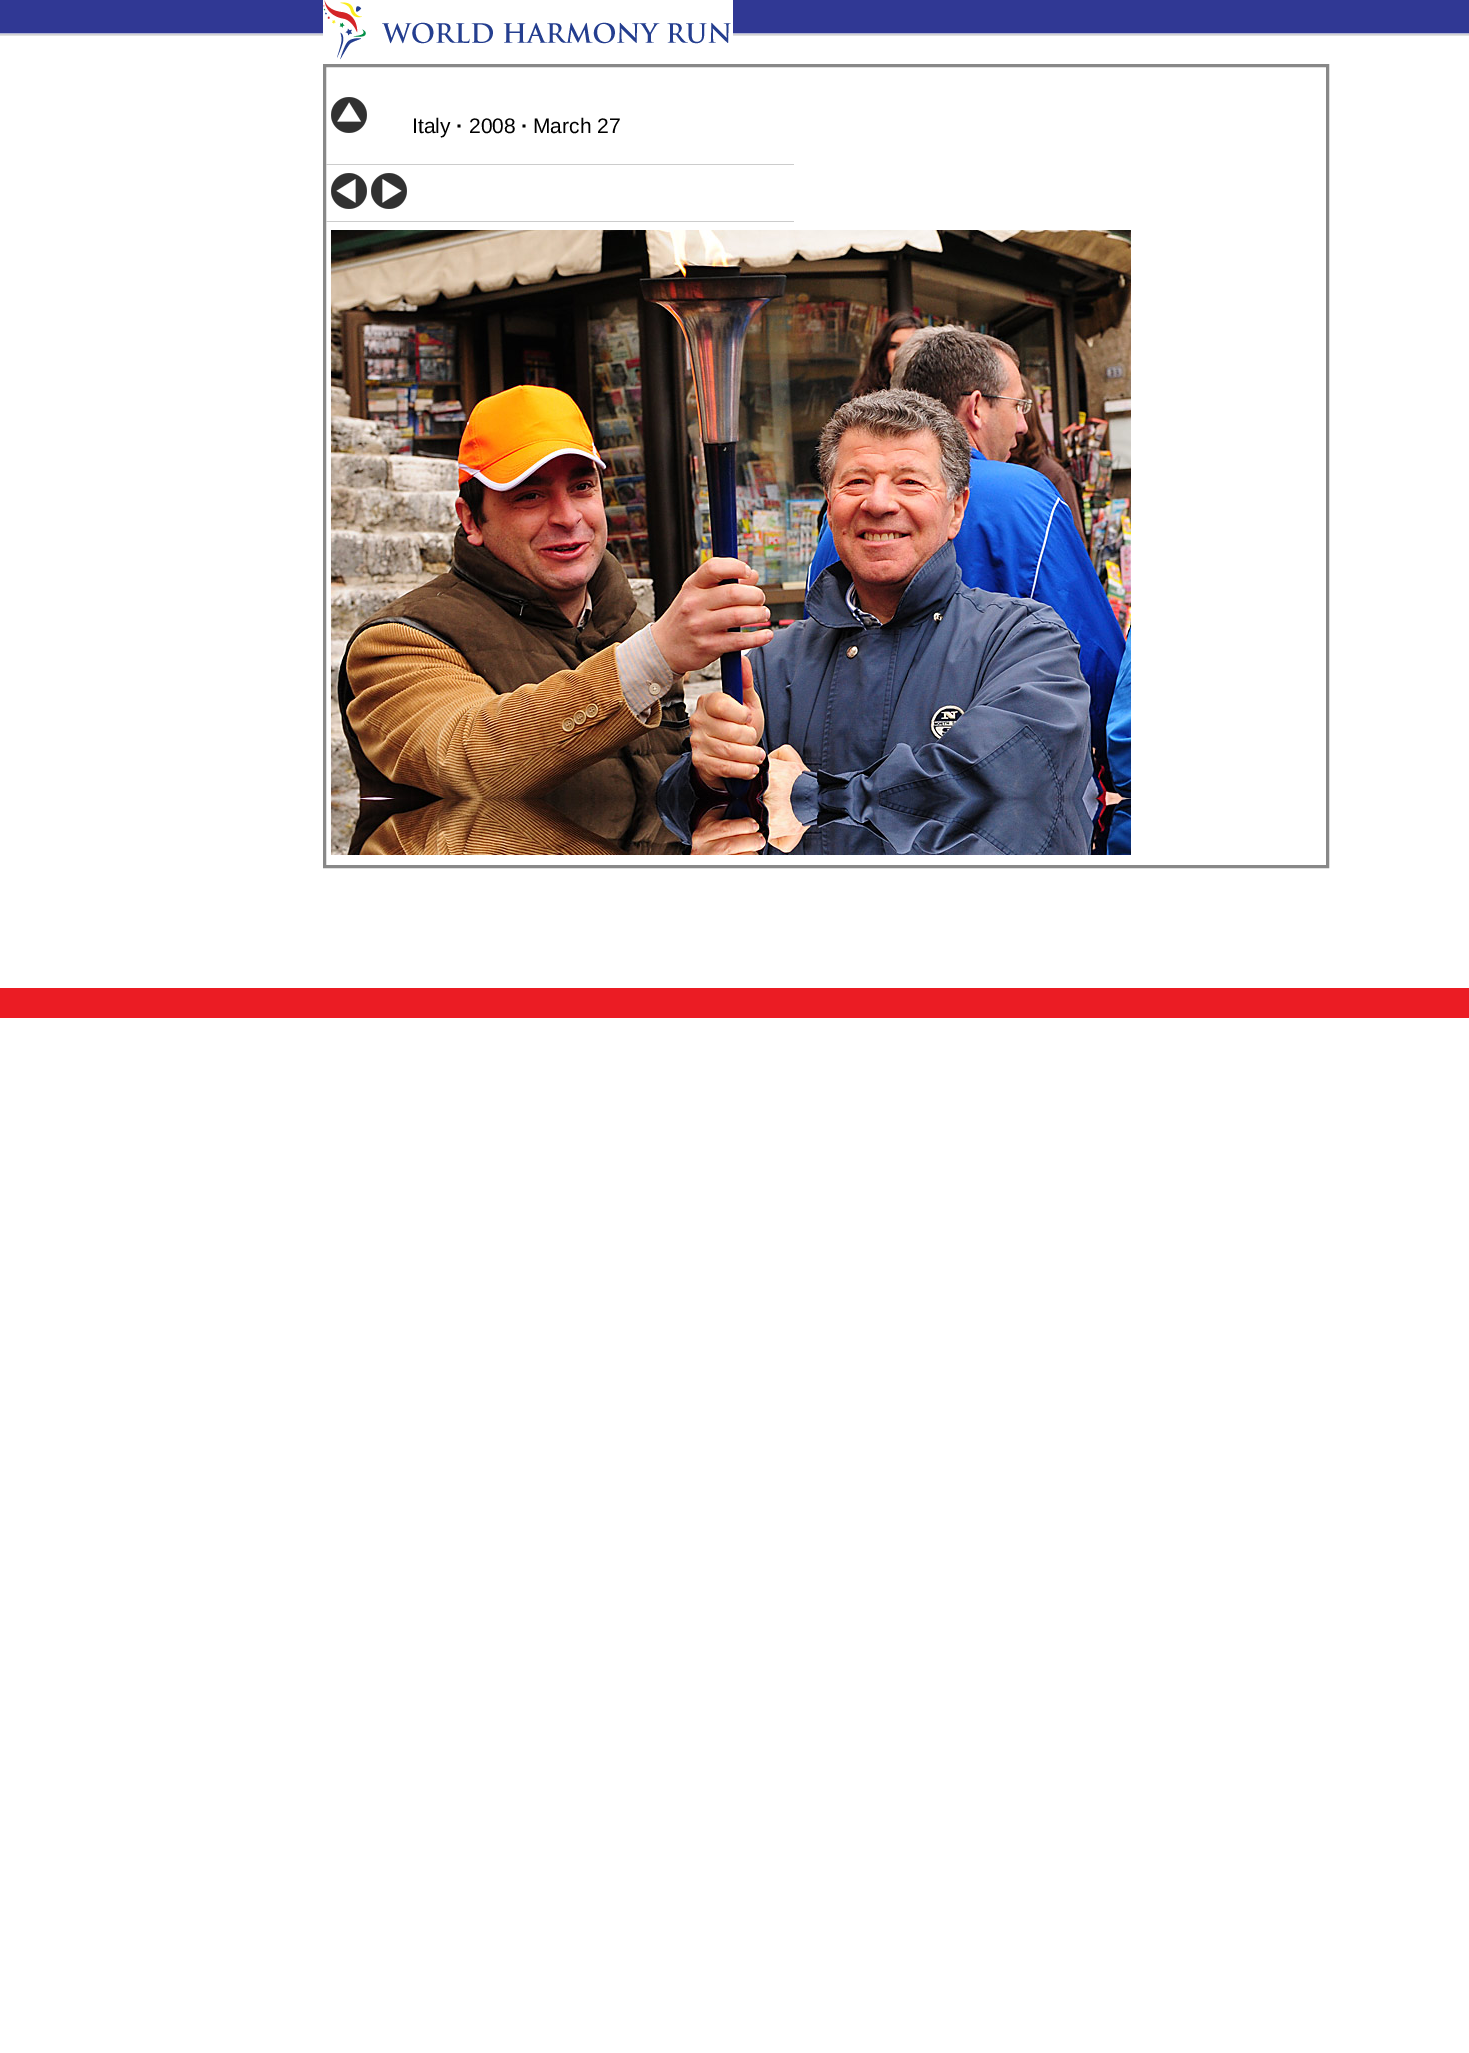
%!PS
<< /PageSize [1469 2053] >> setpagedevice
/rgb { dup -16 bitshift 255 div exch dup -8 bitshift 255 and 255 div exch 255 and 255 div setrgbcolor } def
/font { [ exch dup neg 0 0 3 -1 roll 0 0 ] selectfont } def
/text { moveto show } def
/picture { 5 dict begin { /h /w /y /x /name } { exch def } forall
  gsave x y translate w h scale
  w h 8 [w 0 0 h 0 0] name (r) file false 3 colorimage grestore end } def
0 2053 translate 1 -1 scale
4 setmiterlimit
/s1 { /LiberationSans-Regular 21 font 16#000000 rgb } def
/s2 { /LiberationSans-Bold 21 font 16#000000 rgb } def
16#FFFFFF rgb
0 0 1469 2053 rectfill
(pic1.raw) 0 0 1469 36 picture
(pic2.raw) 323 0 410 60 picture
16#888888 rgb
3 setlinewidth
324.5 65.5 1003 801 rectstroke
(pic3.raw) 331 97 36 36 picture
s1
(Italy) 412 133 text
s2
(·) 456 133 text
s1
(2008) 469 133 text
s2
(·) 521 133 text
s1
(March 27) 533 133 text
16#CCCCCC rgb
326 164 468 1 rectfill
(pic4.raw) 331 173 36 36 picture
(pic5.raw) 371 173 36 36 picture
326 221 468 1 rectfill
(pic6.raw) 331 230 800 569 picture
(pic7.raw) 331 799 800 56 picture
16#EB1C24 rgb
0 988 1469 30 rectfill
showpage
